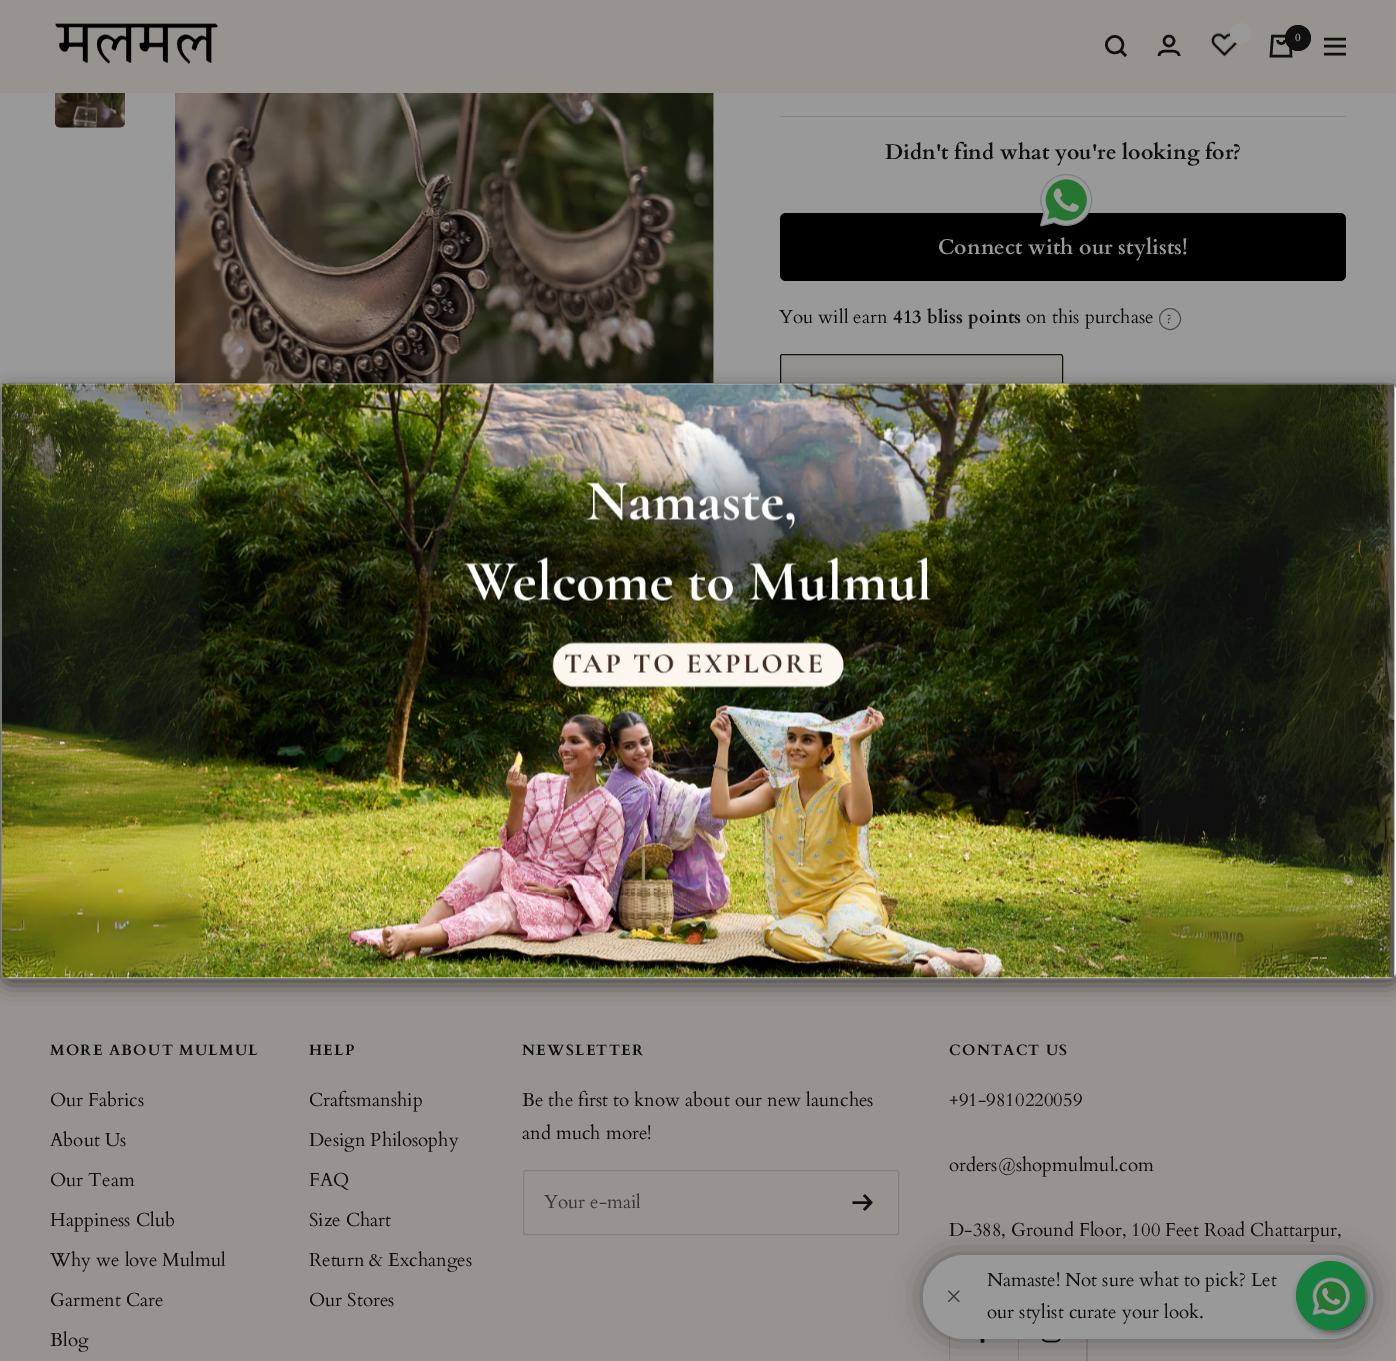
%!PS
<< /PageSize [1396 1361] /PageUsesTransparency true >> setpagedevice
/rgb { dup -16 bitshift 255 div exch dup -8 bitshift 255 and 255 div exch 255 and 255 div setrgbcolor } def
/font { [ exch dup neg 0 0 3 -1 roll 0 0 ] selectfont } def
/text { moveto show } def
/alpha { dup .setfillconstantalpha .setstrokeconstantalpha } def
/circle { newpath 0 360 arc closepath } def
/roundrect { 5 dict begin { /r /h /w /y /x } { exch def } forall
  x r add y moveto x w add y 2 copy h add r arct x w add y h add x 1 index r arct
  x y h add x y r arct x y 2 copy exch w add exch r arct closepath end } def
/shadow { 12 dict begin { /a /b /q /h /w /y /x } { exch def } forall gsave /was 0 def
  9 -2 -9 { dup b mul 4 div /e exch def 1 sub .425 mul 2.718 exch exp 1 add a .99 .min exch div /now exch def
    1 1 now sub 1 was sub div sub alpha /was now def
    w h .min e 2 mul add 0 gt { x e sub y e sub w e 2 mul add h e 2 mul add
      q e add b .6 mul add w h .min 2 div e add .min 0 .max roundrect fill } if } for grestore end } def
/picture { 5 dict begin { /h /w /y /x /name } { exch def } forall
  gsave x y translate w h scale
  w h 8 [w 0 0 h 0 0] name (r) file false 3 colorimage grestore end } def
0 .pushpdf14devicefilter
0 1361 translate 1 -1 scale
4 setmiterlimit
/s1 { /Cardo-Bold 11 font 16#979490 rgb } def
/s2 { /Cardo-Bold 21.25 font 16#101010 rgb } def
/s3 { /Cardo-Bold 21.25 font 16#999999 rgb } def
/s4 { /Cardo-Regular 18.75 font 16#101010 rgb } def
/s5 { /Cardo-Bold 18.75 font 16#101010 rgb } def
/s6 { /Cardo-Regular 12 font 16#101010 rgb } def
/s7 { /Cardo-Regular 18.75 font 16#383736 rgb } def
16#999999 rgb
0 0 1396 1361 rectfill
16#979490 rgb
0 0 1396 93 rectfill
(pic1.raw) 55 23 163 41 picture
16#101010 rgb
2.5 setlinewidth
1120.5 50.5 moveto 1128 42.5 1116.5 31 1109 39 curveto 1101 46.5 1112.5 58 1120.5 50.5 curveto closepath 1120.5 50.5 moveto 1126 56 lineto stroke
1169 41 5 circle stroke
1159 56 moveto 1159 50.5 1165 51 1169 51 curveto 1172.5 51 1179 50.5 1179 56 curveto stroke
(pic2.raw) 1211 32 27 25 picture
16#999999 rgb
1240.5 33.5 10.5 circle fill
16#101010 rgb
1272.5 36 moveto 1290 36 lineto 1291 56 lineto 1271 56 lineto closepath 1277.5 40 moveto 1277.5 45 1285 45 1285 40 curveto stroke
1298 38 13 circle fill
s1
(0) 1295 41 text
16#101010 rgb
1324 39 moveto 1346 39 lineto 1324 54 moveto 1346 54 lineto closepath 1324 46 moveto 1346 46 lineto closepath stroke
(pic3.raw) 55 93 70 35 picture
16#93918E rgb
713 93 1 290 rectfill
(pic4.raw) 175 93 539 290 picture
16#858585 rgb
780 116 566 1 rectfill
s2
(Didn't find what you're looking for?) 885 159 text
16#000000 rgb
780 213 566 68 6 roundrect fill
(pic5.raw) 1040 174 53 53 picture
s3
(Connect with our stylists!) 938 254 text
s4
(You will earn) 779 323 text
s5
(413 bliss points) 893 323 text
s4
(on this purchase) 1026 323 text
16#4D4D4D rgb
1 setlinewidth
1170 319 10.5 circle stroke
s6
(?) 1167 323 text
16#93918E rgb
780.5 354.5 282 66 2 roundrect gsave fill grestore
16#101010 rgb
stroke
16#979490 rgb
0 951 1396 410 rectfill
gsave
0 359 moveto 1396 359 lineto 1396 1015 lineto 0 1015 lineto closepath 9 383 moveto 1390 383 lineto 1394.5 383 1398 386.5 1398 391 curveto 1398 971 lineto 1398 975.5 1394.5 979 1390 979 curveto 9 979 lineto 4.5 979 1 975.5 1 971 curveto 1 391 lineto 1 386.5 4.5 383 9 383 curveto closepath eoclip newpath
16#000000 rgb
1 389 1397 596 8 9.5 0.5 shadow
grestore
16#FEFEFE rgb
3 384 1393 594 6 roundrect fill
16#888888 rgb
1.5 383.5 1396 595 7.5 roundrect stroke
(pic6.raw) 1 383 1394 596 picture
16#83807D rgb
523.5 1170.5 375 64 2 roundrect stroke
951 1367 moveto 953 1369 1012 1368 1019 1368 curveto 1019 1299 lineto 1018 1299 lineto 1018 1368 lineto closepath fill
952 1299 moveto 950 1299 949 1300 949 1302 curveto 949 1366 lineto 949 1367 950 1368 952 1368 curveto 951 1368 950 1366 950 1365 curveto 950 1301 lineto 951 1300 lineto closepath fill
(pic9.raw) 980 1339 5 4 picture
1019 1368 moveto 1086 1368 lineto 1087 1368 1088 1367 1088 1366 curveto 1088 1302 lineto 1088 1300 1087 1299 1086 1299 curveto 1085 1299 lineto 1086 1299 1086 1300 1086 1301 curveto 1086 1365 lineto 1086 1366 1085 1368 1084 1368 curveto closepath fill
(pic10.raw) 1041 1339 20 4 picture
16#000000 rgb
923 1255 450 84 42 14 0.35 shadow
16#999999 rgb
923 1255 450 84 42 roundrect fill
(pic7.raw) 947 1290 13 12 picture
s4
(Namaste! Not sure what to pick? Let) 987 1286 text
(our stylist curate your look.) 987 1318 text
16#000000 rgb
1303 1268 61 61 30.5 5 1 shadow
16#167F3D rgb
1330.5 1295.5 34.5 circle fill
(pic8.raw) 1312 1277 38 39 picture
/Cardo-Bold 15 font
16#101010 rgb
50 1055 moveto 1.25 0 (MORE ABOUT MULMUL) ashow
s4
(Our Fabrics) 50 1106 text
(About Us) 50 1146 text
(Our Team) 50 1186 text
(Happiness Club) 50 1226 text
(Why we love Mulmul) 50 1266 text
(Garment Care) 50 1306 text
(Blog) 50 1346 text
/Cardo-Bold 15 font
309 1055 moveto 1.25 0 (HELP) ashow
s4
(Craftsmanship) 309 1106 text
(Design Philosophy) 309 1146 text
(FAQ) 309 1186 text
(Size Chart) 309 1226 text
(Return & Exchanges) 309 1266 text
(Our Stores) 309 1306 text
/Cardo-Bold 15 font
522 1055 moveto 1.25 0 (NEWSLETTER) ashow
s4
(Be the first to know about our new launches) 522 1106 text
(and much more!) 522 1139 text
s7
(Your e-mail) 544 1208 text
16#101010 rgb
2.5 setlinewidth
852.5 1202.5 moveto 871 1202.5 lineto 864 1195 moveto 871 1202.5 lineto 864 1210 lineto stroke
/Cardo-Bold 15 font
949 1055 moveto 1.25 0 (CONTACT US) ashow
s4
(+91-9810220059) 949 1106 text
(orders@shopmulmul.com) 949 1171 text
(D-388, Ground Floor, 100 Feet Road Chattarpur,) 949 1236 text
.poppdf14devicefilter showpage
